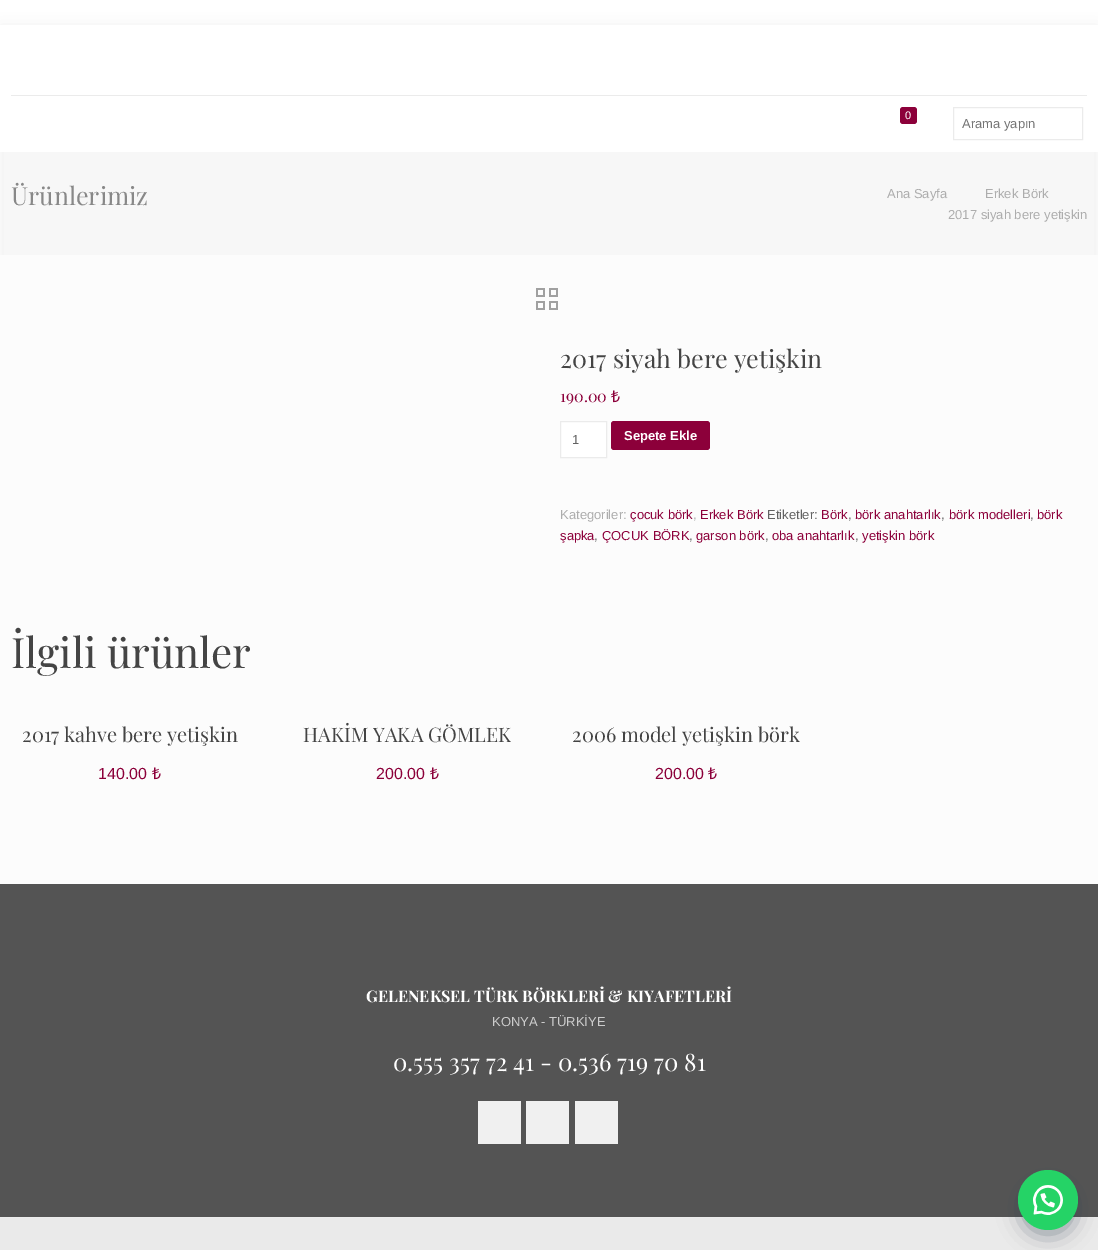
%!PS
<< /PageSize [1098 1250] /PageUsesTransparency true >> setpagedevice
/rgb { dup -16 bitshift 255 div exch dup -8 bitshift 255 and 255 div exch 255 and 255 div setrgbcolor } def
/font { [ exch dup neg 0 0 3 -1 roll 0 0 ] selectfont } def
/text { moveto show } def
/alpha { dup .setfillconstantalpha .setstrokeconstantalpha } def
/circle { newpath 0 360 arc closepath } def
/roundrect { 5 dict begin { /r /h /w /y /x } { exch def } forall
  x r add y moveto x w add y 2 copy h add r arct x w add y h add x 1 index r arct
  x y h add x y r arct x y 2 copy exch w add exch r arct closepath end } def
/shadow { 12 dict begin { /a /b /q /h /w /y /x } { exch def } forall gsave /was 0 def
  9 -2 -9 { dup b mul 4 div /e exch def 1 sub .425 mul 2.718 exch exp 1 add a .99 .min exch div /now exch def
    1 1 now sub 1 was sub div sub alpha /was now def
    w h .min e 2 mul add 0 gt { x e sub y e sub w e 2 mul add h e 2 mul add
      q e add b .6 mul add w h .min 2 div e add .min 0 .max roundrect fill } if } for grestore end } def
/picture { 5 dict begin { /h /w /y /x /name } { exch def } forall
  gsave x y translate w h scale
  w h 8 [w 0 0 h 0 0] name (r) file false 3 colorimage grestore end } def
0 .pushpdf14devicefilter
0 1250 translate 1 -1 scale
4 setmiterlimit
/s1 { /LiberationSans-Regular 11 font 16#FFFFFF rgb } def
/s2 { /LiberationSans-Regular 13 font 16#757575 rgb } def
/s3 { /PlayfairDisplay-Regular 25 font 16#888888 rgb } def
/s4 { /LiberationSans-Regular 13 font 16#ADADAD rgb } def
/s5 { /PlayfairDisplay-Regular 25 font 16#444444 rgb } def
/s6 { /PlayfairDisplay-Regular 16 font 16#8C003A rgb } def
/s7 { /NotoSans-Regular 16 font 16#8C003A rgb } def
/s8 { /LiberationSans-Regular 13 font 16#626262 rgb } def
/s9 { /LiberationSans-Bold 13 font 16#FFFFFF rgb } def
/s10 { /LiberationSans-Regular 13 font 16#8C003A rgb } def
/s11 { /PlayfairDisplay-Regular 42 font 16#444444 rgb } def
/s12 { /PlayfairDisplay-Regular 20 font 16#444444 rgb } def
/s13 { /LiberationSans-Regular 16 font 16#8C003A rgb } def
/s14 { /PlayfairDisplay-Bold 16 font 16#FFFFFF rgb } def
/s15 { /LiberationSans-Regular 13 font 16#CCCCCC rgb } def
/s16 { /PlayfairDisplay-Regular 24 font 16#FFFFFF rgb } def
16#FFFFFF rgb
0 0 1098 1250 rectfill
16#000000 rgb
0 25 1098 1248 0 7.5 0.06 shadow
16#FCFCFC rgb
0 255 1098 629 rectfill
16#FFFFFF rgb
0 25 1098 127 rectfill
16#EBEBEB rgb
11 95 1076 1 rectfill
16#8C003A rgb
900 107 17 17 3 roundrect fill
s1
(0) 905 119 text
16#EBEBEB rgb
953.5 107.5 129 32 rectstroke
s2
(Arama yapın) 962 128 text
16#F7F7F7 rgb
4 152 1090 103 rectfill
s3
(Ürünlerimiz) 11 205 text
s4
(Ana Sayfa) 887 198 text
(Erkek Börk) 985 198 text
(2017 siyah bere yetişkin) 948 219 text
(pic1.raw) 536 288 22 22 picture
s5
(2017 siyah bere yetişkin) 560 368 text
s6
(190.00) 560 402 text
s7
(₺) 611 402 text
16#FFFFFF rgb
560.5 421.5 moveto 606.5 421.5 lineto 606.5 457.5 lineto 560.5 457.5 lineto closepath gsave fill grestore
16#EBEBEB rgb
stroke
s8
(1) 572 444 text
16#8C003A rgb
611 421 99 29 3 roundrect fill
s9
(Sepete Ekle) 624 440 text
s4
(Kategoriler:) 560 519 text
s10
(çocuk börk) 630 519 text
s4
(,) 693 519 text
s10
(Erkek Börk) 700 519 text
s8
(Etiketler:) 767 519 text
s10
(Börk) 821 519 text
s8
(,) 848 519 text
s10
(börk anahtarlık) 855 519 text
s8
(,) 941 519 text
s10
(börk modelleri) 949 519 text
s8
(,) 1030 519 text
s10
(börk) 1037 519 text
(şapka) 560 540 text
s8
(,) 594 540 text
s10
(ÇOCUK BÖRK) 602 540 text
s8
(,) 689 540 text
s10
(garson börk) 696 540 text
s8
(,) 765 540 text
s10
(oba anahtarlık) 772 540 text
s8
(,) 855 540 text
s10
(yetişkin börk) 862 540 text
s11
(İlgili ürünler) 11 668 text
s12
(2017 kahve bere yetişkin) 22 742 text
s13
(140.00) 98 779 text
s7
(₺) 152 779 text
s12
(HAKİM YAKA GÖMLEK) 303 742 text
s13
(200.00) 376 779 text
s7
(₺) 430 779 text
s12
(2006 model yetişkin börk) 572 742 text
s13
(200.00) 655 779 text
s7
(₺) 708 779 text
16#545454 rgb
0 884 1098 333 rectfill
s14
(GELENEKSEL TÜRK BÖRKLERİ & KIYAFETLERİ) 366 1002 text
s15
(KONYA - TÜRKİYE) 492 1026 text
s16
(0.555 357 72 41 - 0.536 719 70 81) 393 1071 text
16#F0F0F0 rgb
478 1101 43 43 rectfill
526 1101 43 43 rectfill
575 1101 43 43 rectfill
16#EAEAEA rgb
0 1218 1098 32 rectfill
16#ECECEC rgb
0 1217 1098 1 rectfill
16#2D3E4F rgb
1023 1183 50 50 25 12.5 0.3 shadow
1023 1183 50 50 25 12.5 0.3 shadow
16#25D366 rgb
1048 1200 30 circle fill
(pic2.raw) 1033 1185 30 30 picture
.poppdf14devicefilter showpage
